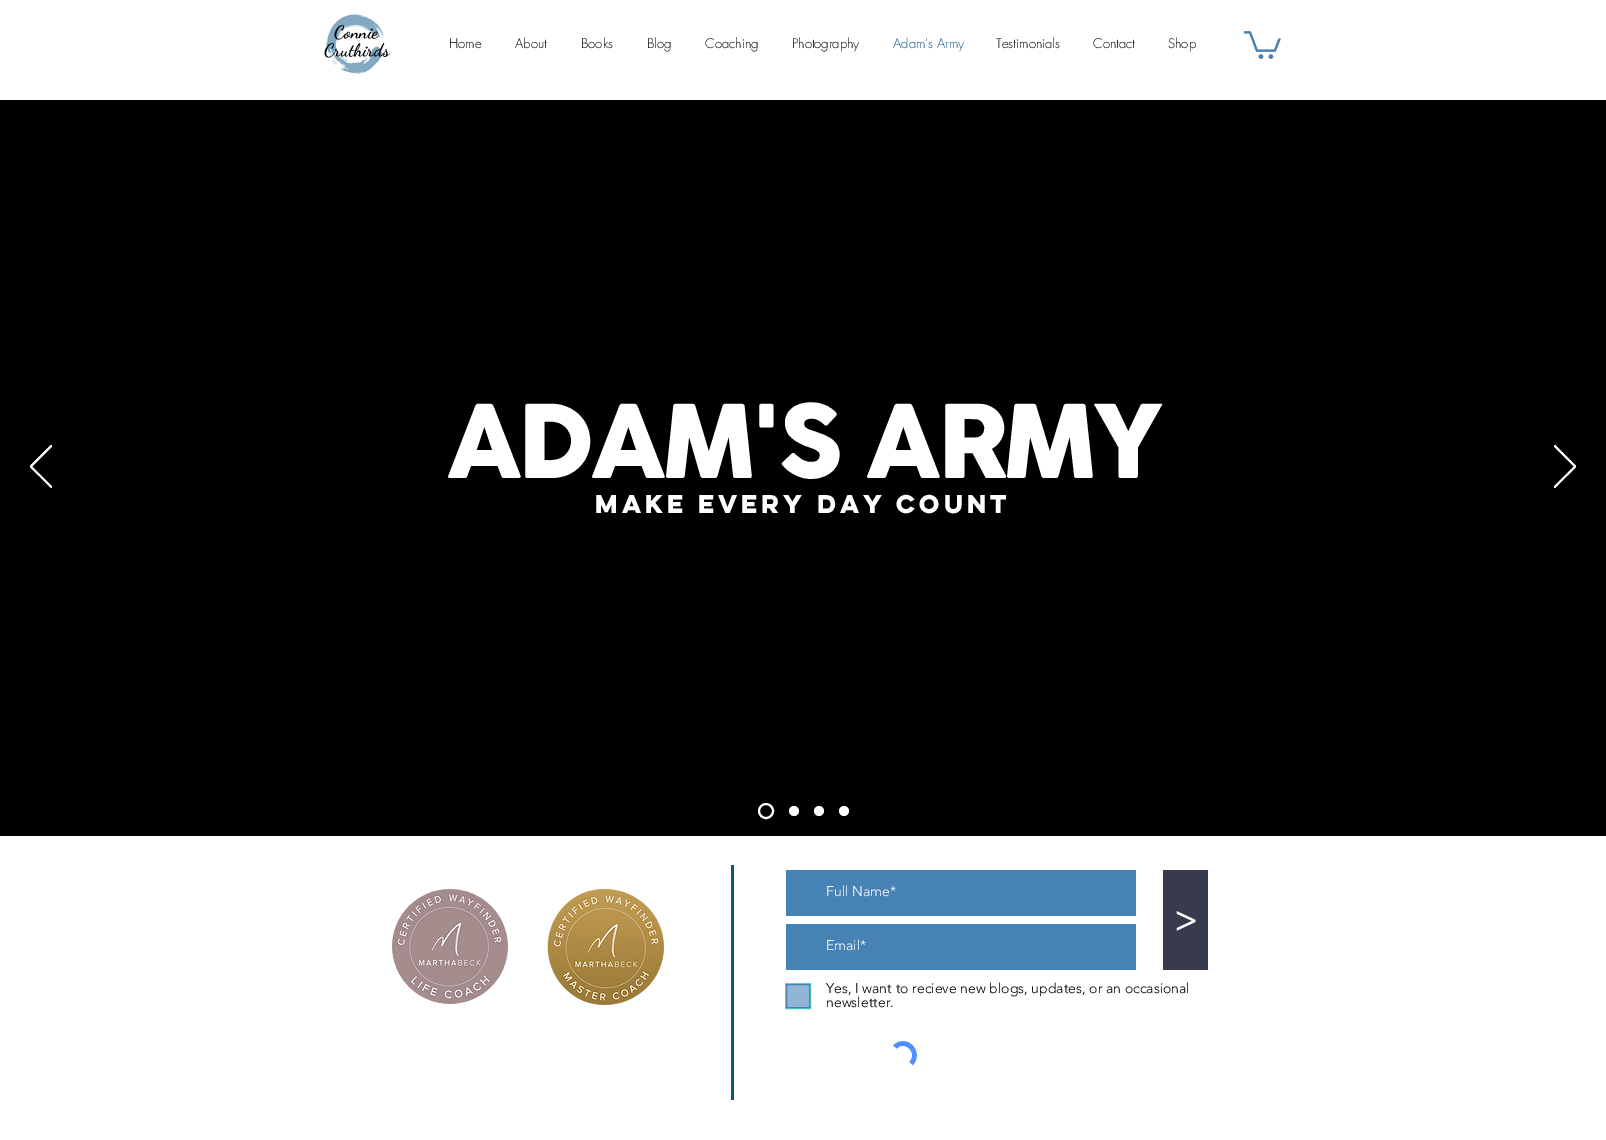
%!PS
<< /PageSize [1606 1140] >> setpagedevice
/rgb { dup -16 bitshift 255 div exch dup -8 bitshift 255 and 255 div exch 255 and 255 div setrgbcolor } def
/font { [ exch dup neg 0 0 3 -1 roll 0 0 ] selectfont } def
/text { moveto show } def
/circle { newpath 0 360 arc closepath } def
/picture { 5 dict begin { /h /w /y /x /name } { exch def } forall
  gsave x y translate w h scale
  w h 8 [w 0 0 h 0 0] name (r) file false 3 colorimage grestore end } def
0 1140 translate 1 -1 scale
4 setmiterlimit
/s1 { /DancingScript-Bold 18 font 16#000000 rgb } def
/s2 { /futura-Light 13 font 16#000000 rgb } def
/s3 { /futura-Light 13 font 16#0A5587 rgb } def
/s4 { /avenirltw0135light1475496-Light 14 font 16#FFFFFF rgb } def
/s5 { /avenirltw0135light1475496-Bold 35 font 16#FFFFFF rgb } def
/s6 { /avenirltw0135light1475496-Light 14 font 16#000000 rgb } def
16#FFFFFF rgb
0 0 1606 1140 rectfill
(pic1.raw) 326 14 58 60 picture
s1
(Connie) 334 38 text
(Cruthirds) 324 56 text
s2
(Home) 449 48 text
(About) 515 48 text
(Books) 581 48 text
(Blog) 647 48 text
(Coaching) 705 48 text
(Photography) 792 48 text
s3
(Adam's Army) 893 48 text
s2
(Testimonials) 996 48 text
(Contact) 1093 48 text
(Shop) 1168 48 text
(pic2.raw) 1244 31 37 28 picture
0 100 1606 736 rectfill
16#FFFFFF rgb
51 488 moveto 30 466 lineto 51 445 lineto 52 446 lineto 31 466 lineto 52 487 lineto closepath fill
gsave
30 445 22 43 rectclip
51.5 487.5 moveto 30 466.5 lineto 51.5 445 lineto 52 446 lineto 31.5 466.5 lineto 52 487 lineto closepath stroke
grestore
/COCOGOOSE-Regular 100 font
446 478 moveto -5 0 (ADAM'S ARMY) ashow
/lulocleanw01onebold-Bold 23 font
595 513 moveto -1.1 0 (MAKE EVERY DAY COUNT) ashow
1555 488 moveto 1576 466 lineto 1555 445 lineto 1554 446 lineto 1575 466 lineto 1554 487 lineto closepath fill
gsave
1554 445 22 43 rectclip
1554.5 487.5 moveto 1576 466.5 lineto 1554.5 445 lineto 1554 446 lineto 1574.5 466.5 lineto 1554 487 lineto closepath stroke
grestore
2 setlinewidth
766 811 7 circle stroke
794 811 5 circle fill
819 811 5 circle fill
844 811 5 circle fill
(pic3.raw) 392 889 116 115 picture
(pic4.raw) 547 889 117 116 picture
16#0A5587 rgb
731 865 3 235 rectfill
16#4682B4 rgb
786 870 350 46 rectfill
s4
(Full Name*) 826 896 text
16#373B4D rgb
1163 870 45 100 rectfill
s5
(>) 1174 932 text
16#4682B4 rgb
786 924 350 46 rectfill
s4
(Email*) 826 950 text
16#49D6D6 rgb
1 setlinewidth
785.5 983.5 25 25 rectstroke
16#92B5D3 rgb
786.5 984.5 moveto 809.5 984.5 lineto 809.5 1007.5 lineto 786.5 1007.5 lineto closepath gsave fill grestore
16#4682B4 rgb
stroke
s6
(Yes, I want to recieve new blogs, updates, or an occasional) 826 993 text
(newsletter.) 826 1007 text
16#4D90FE rgb
4.6 setlinewidth
895 1047 moveto 905.5 1036 922 1052.5 911 1063.5 curveto stroke
showpage
